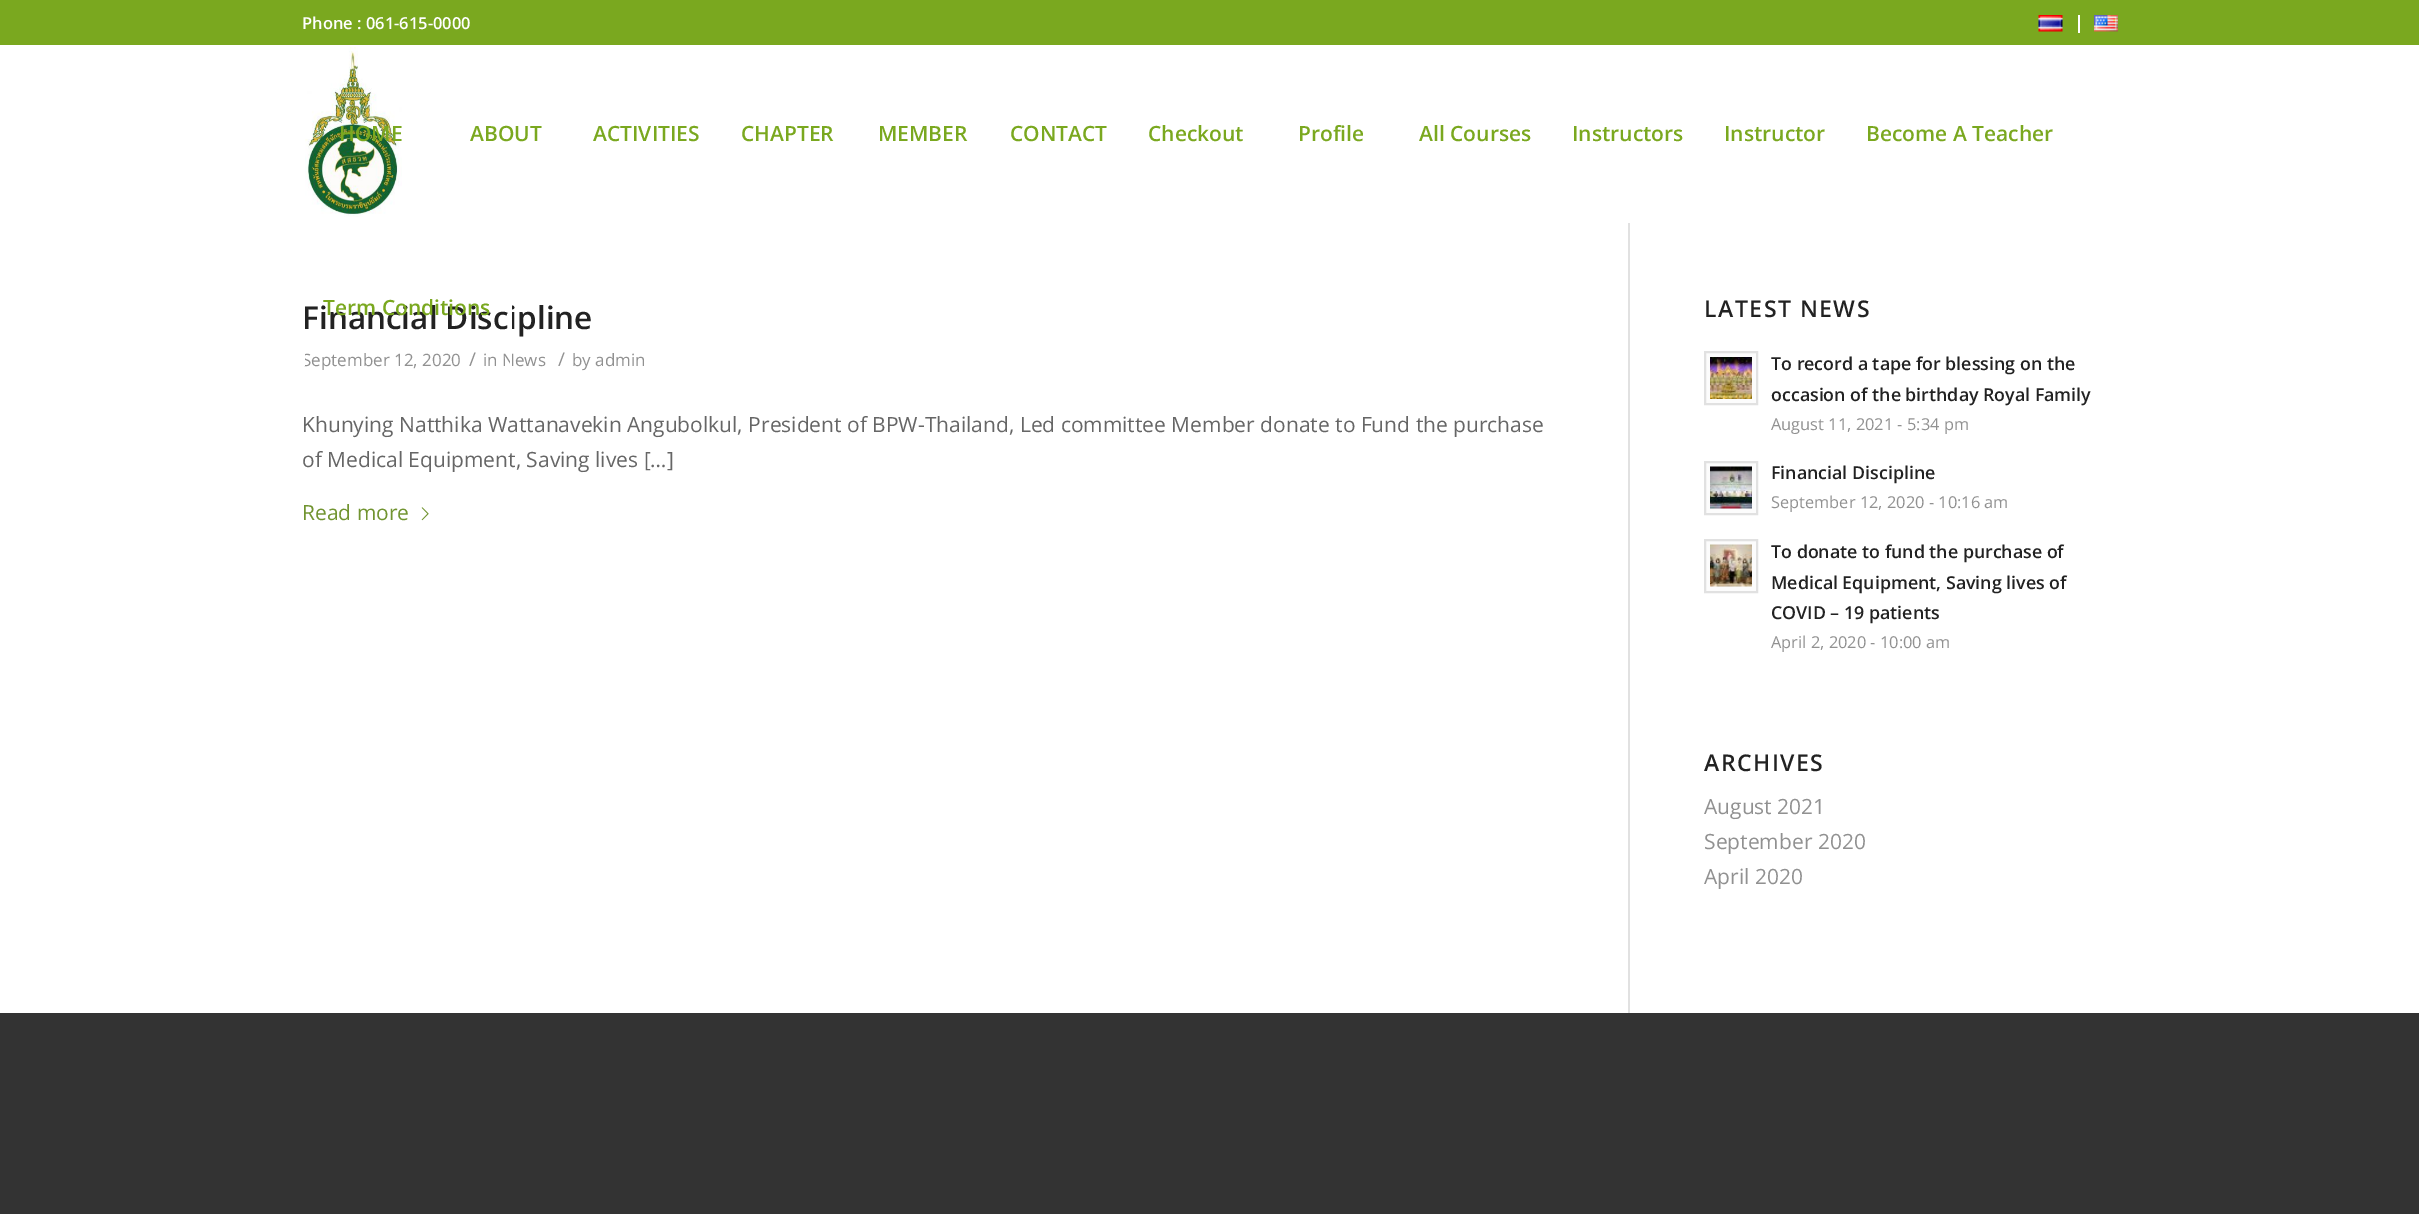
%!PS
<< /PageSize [2419 1214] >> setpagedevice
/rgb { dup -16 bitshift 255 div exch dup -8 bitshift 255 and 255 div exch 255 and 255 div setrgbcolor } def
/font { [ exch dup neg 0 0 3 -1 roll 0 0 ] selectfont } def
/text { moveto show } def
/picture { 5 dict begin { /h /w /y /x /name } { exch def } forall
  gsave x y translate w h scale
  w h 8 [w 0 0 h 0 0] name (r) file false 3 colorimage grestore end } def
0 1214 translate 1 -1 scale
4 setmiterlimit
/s1 { /OpenSans-SemiBold 16.5 font 16#FFFFFF rgb } def
/s2 { /OpenSans-SemiBold 21 font 16#7AA81F rgb } def
/s3 { /OpenSans-SemiBold 31.5 font 16#222222 rgb } def
/s4 { /OpenSans-Regular 17 font 16#919191 rgb } def
/s5 { /OpenSans-Regular 19 font 16#919191 rgb } def
/s6 { /OpenSans-Regular 21 font 16#666666 rgb } def
/s7 { /OpenSans-Regular 21 font 16#719430 rgb } def
/s8 { /OpenSans-SemiBold 17.8 font 16#222222 rgb } def
/s9 { /OpenSans-Regular 16.4 font 16#919191 rgb } def
/s10 { /OpenSans-Regular 21 font 16#919191 rgb } def
16#333333 rgb
0 0 2419 1214 rectfill
16#7AA81F rgb
0 0 2419 45 rectfill
s1
(Phone : 061-615-0000) 302 29 text
2078 15 2 18 rectfill
(pic1.raw) 2038 15 25 17 picture
(pic2.raw) 2094 15 24 17 picture
0 223 2419 790 rectfill
16#E1E1E1 rgb
1628 222 2 791 rectfill
16#FFFFFF rgb
0 221 2419 2 rectfill
0 45 2419 176 rectfill
(pic3.raw) 305 47 97 170 picture
s2
(HOME) 339 141 text
(ABOUT) 470 141 text
(ACTIVITIES) 593 141 text
(CHAPTER) 741 141 text
(MEMBER) 878 141 text
(CONTACT) 1010 141 text
(Checkout) 1148 141 text
(Profile) 1298 141 text
(All Courses) 1419 141 text
(Instructors) 1572 141 text
(Instructor) 1724 141 text
(Become A Teacher) 1866 141 text
s3
(Financial Discipline) 302 329 text
s4
(in News) 483 366 text
16#FFFFFF rgb
510 305 2 61 rectfill
s4
(September 12, 2020) 302 366 text
16#FFFFFF rgb
303 354 2 12 rectfill
s2
(Term Conditions) 323 315 text
s5
(/) 469 366 text
(/) 558 366 text
s4
(by admin) 572 366 text
s6
(Khunying Natthika Wattanavekin Angubolkul, President of BPW-Thailand, Led committee Member donate to Fund the purchase) 302 432 text
(of Medical Equipment, Saving lives […]) 302 467 text
s7
(Read more) 302 520 text
(pic4.raw) 421 507 8 14 picture
/OpenSans-SemiBold 23 font
16#222222 rgb
1704 317 moveto 1.5 0 (LATEST NEWS) ashow
16#FCFCFC rgb
1705 352 moveto 1757 352 lineto 1757 404 lineto 1705 404 lineto closepath gsave fill grestore
16#E1E1E1 rgb
2 setlinewidth
stroke
(pic5.raw) 1710 357 42 42 picture
s8
(To record a tape for blessing on the) 1771 370 text
(occasion of the birthday Royal Family) 1771 401 text
s9
(August 11, 2021 - 5:34 pm) 1771 430 text
16#FCFCFC rgb
1705 462 moveto 1757 462 lineto 1757 514 lineto 1705 514 lineto closepath gsave fill grestore
16#E1E1E1 rgb
stroke
(pic6.raw) 1710 466 42 43 picture
s8
(Financial Discipline) 1771 479 text
s9
(September 12, 2020 - 10:16 am) 1771 508 text
16#FCFCFC rgb
1705 540 moveto 1757 540 lineto 1757 592 lineto 1705 592 lineto closepath gsave fill grestore
16#E1E1E1 rgb
stroke
(pic7.raw) 1710 544 42 43 picture
s8
(To donate to fund the purchase of) 1771 558 text
(Medical Equipment, Saving lives of) 1771 589 text
(COVID – 19 patients) 1771 619 text
s9
(April 2, 2020 - 10:00 am) 1771 648 text
/OpenSans-SemiBold 23 font
16#222222 rgb
1704 771 moveto 1.5 0 (ARCHIVES) ashow
s10
(August 2021) 1704 814 text
(September 2020) 1704 849 text
(April 2020) 1704 884 text
showpage
